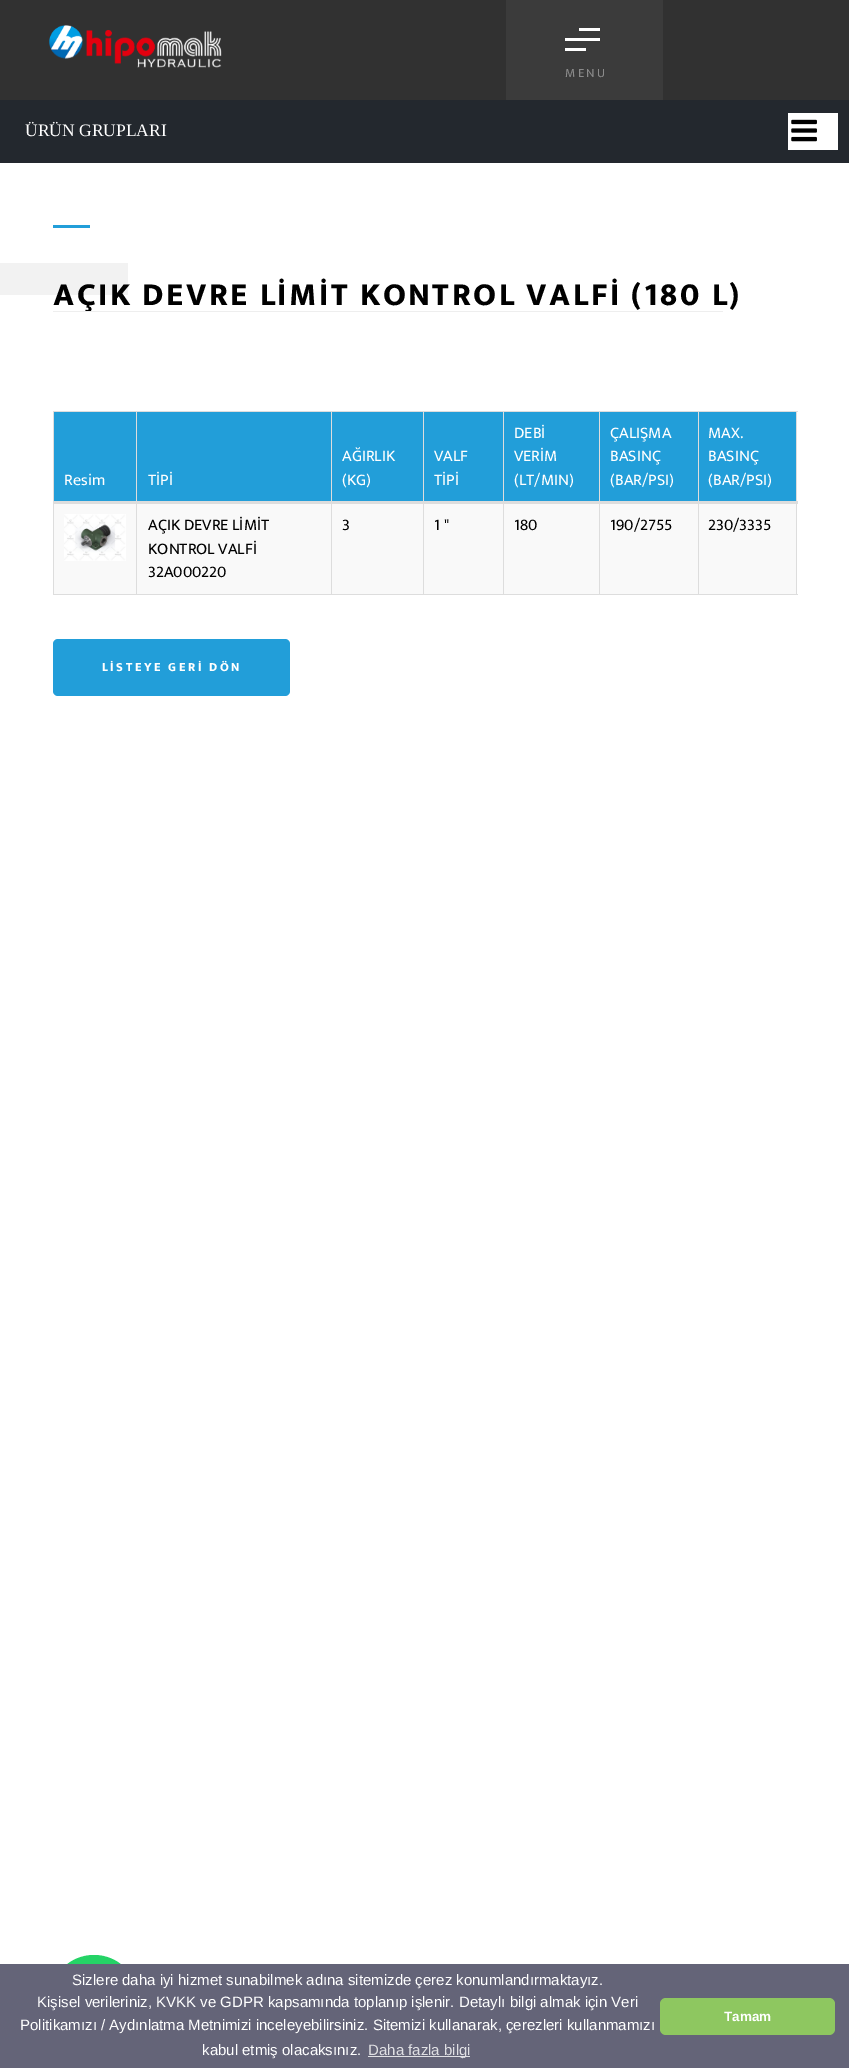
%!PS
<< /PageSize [849 2068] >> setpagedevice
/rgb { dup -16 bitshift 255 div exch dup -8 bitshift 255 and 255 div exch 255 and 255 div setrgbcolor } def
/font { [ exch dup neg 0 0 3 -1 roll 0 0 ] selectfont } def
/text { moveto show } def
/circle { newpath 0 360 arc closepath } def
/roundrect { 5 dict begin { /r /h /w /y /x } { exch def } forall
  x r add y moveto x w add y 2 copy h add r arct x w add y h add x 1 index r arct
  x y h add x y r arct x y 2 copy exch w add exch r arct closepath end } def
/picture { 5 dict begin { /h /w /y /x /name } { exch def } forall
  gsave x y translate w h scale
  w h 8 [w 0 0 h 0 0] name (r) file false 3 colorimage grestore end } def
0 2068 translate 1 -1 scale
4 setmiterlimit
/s1 { /LiberationSerif-Regular 17.5 font 16#FFFFFF rgb } def
/s2 { /MuktaVaani-Regular 16.25 font 16#FFFFFF rgb } def
/s3 { /MuktaVaani-Regular 16.25 font 16#000000 rgb } def
/s4 { /LiberationSans-Regular 15 font 16#FFFFFF rgb } def
/s5 { /LiberationSans-Regular 15 font 16#E0E0E4 rgb } def
/s6 { /LiberationSans-Bold 13.5 font 16#FFFFFF rgb } def
16#313131 rgb
0 0 849 2068 rectfill
(pic1.raw) 49 25 173 43 picture
16#3B3B3B rgb
506 0 157 100 rectfill
16#FFFFFF rgb
579 28 21 3 rectfill
565 38 35 3 rectfill
565 48 21 3 rectfill
/MuktaVaani-Regular 12.5 font
16#8B8B8B rgb
565 77 moveto 2.5 0 (MENU) ashow
16#FFFFFF rgb
0 163 849 1801 rectfill
16#23282E rgb
0 100 849 63 rectfill
s1
(ÜRÜN GRUPLARI) 25 136 text
788 113 50 37 rectfill
(pic2.raw) 791 119 26 23 picture
16#229ED9 rgb
53 225 37 3 rectfill
16#F2F2F2 rgb
0 263 128 32 rectfill
/MuktaVaani-ExtraBold 32.5 font
16#000000 rgb
53 305 moveto 2.5 0 (AÇIK DEVRE LİMİT KONTROL VALFİ \(180 L\)) ashow
16#EEEEEE rgb
53 311 670 1 rectfill
16#DDDDDD rgb
53 411 745 1 rectfill
796 411 1 184 rectfill
53 594 745 1 rectfill
53 411 1 184 rectfill
16#229ED9 rgb
54 412 277 89 rectfill
s2
(Resim) 64 485 text
(TİPİ) 148 485 text
16#229ED9 rgb
332 412 91 89 rectfill
s2
(AĞIRLIK) 342 461 text
(\(KG\)) 342 485 text
16#229ED9 rgb
424 412 79 89 rectfill
s2
(VALF) 434 461 text
(TİPİ) 434 485 text
16#229ED9 rgb
504 412 95 89 rectfill
s2
(DEBİ) 514 438 text
(VERİM) 514 461 text
(\(LT/MIN\)) 514 485 text
16#229ED9 rgb
600 412 98 89 rectfill
s2
(ÇALIŞMA) 610 438 text
(BASINÇ) 610 461 text
(\(BAR/PSI\)) 610 485 text
16#229ED9 rgb
699 412 97 89 rectfill
16#F9F9F9 rgb
54 504 277 90 rectfill
16#DDDDDD rgb
136 411 1 184 rectfill
331 411 1 184 rectfill
423 411 1 184 rectfill
503 411 1 184 rectfill
599 411 1 184 rectfill
698 411 1 184 rectfill
53 501 745 3 rectfill
s2
(MAX.) 708 438 text
(BASINÇ) 708 461 text
(\(BAR/PSI\)) 708 485 text
(pic3.raw) 64 514 62 47 picture
s3
(AÇIK DEVRE LİMİT) 148 530 text
(KONTROL VALFİ) 148 554 text
(32A000220) 148 577 text
16#F9F9F9 rgb
332 504 91 90 rectfill
s3
(3) 342 530 text
16#F9F9F9 rgb
424 504 79 90 rectfill
s3
(1 ") 434 530 text
16#F9F9F9 rgb
504 504 95 90 rectfill
s3
(180) 514 530 text
16#F9F9F9 rgb
600 504 98 90 rectfill
s3
(190/2755) 610 530 text
16#F9F9F9 rgb
699 504 97 90 rectfill
s3
(230/3335) 708 530 text
16#229ED9 rgb
53 639 237 57 5 roundrect fill
/MuktaVaani-ExtraBold 12.5 font
16#FFFFFF rgb
102 671 moveto 2.5 0 (LİSTEYE GERİ DÖN) ashow
16#25D366 rgb
94 1999 44 circle fill
16#646478 rgb
0 1964 849 104 rectfill
s4
(Sizlere daha iyi hizmet sunabilmek adına sitemizde çerez konumlandırmaktayız.) 72 1985 text
(Kişisel verileriniz, KVKK ve GDPR kapsamında toplanıp işlenir. Detaylı bilgi almak için Veri) 37 2007 text
(Politikamızı / Aydınlatma Metnimizi inceleyebilirsiniz. Sitemizi kullanarak, çerezleri kullanmamızı) 20 2030 text
(kabul etmiş olacaksınız.) 202 2055 text
16#E0E0E4 rgb
368 2056 102 1 rectfill
(Daha fazla bilgi) 368 2055 text
16#8EC760 rgb
660 1998 175 37 6 roundrect fill
s6
(Tamam) 724 2021 text
showpage
